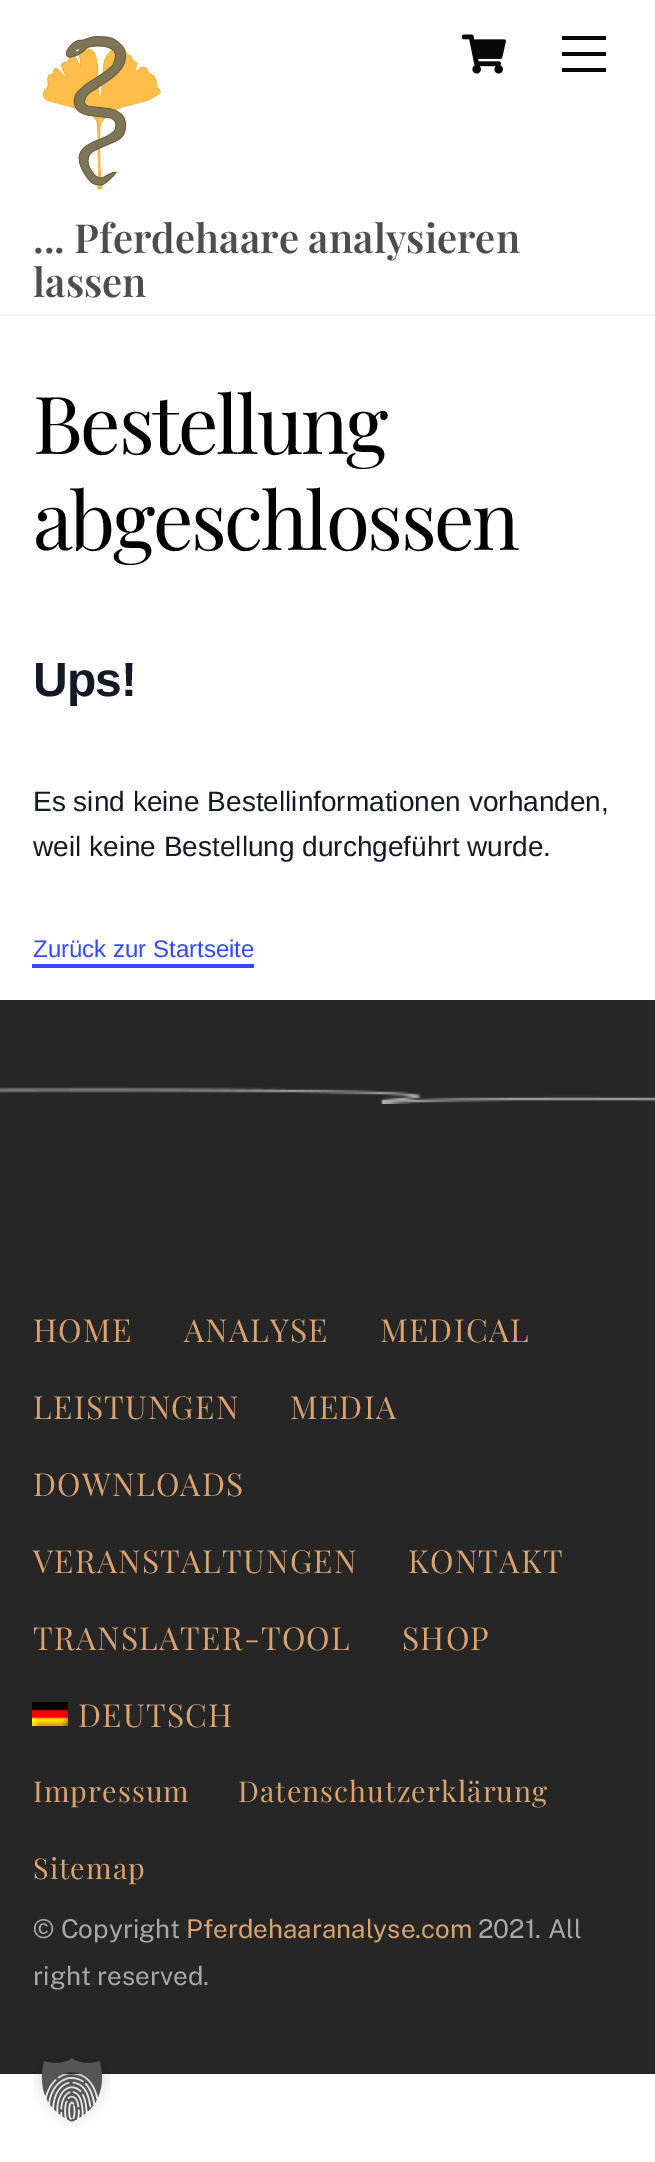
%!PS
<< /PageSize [655 2162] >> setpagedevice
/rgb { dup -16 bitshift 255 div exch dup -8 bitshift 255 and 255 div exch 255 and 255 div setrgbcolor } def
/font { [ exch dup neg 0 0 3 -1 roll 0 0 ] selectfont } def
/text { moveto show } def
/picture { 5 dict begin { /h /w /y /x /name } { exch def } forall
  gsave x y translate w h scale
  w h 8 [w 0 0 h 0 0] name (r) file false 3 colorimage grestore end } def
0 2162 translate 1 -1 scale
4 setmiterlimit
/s1 { /PlayfairDisplay-SemiBold 40 font 16#4D4D4D rgb } def
/s2 { /LiberationSans-Regular 28 font 16#141827 rgb } def
/s3 { /LiberationSans-Regular 24 font 16#334AFF rgb } def
/s4 { /PublicSans-Regular 26 font 16#A8A8A9 rgb } def
/s5 { /PublicSans-Regular 26 font 16#DAA36D rgb } def
16#FFFFFF rgb
0 0 655 2162 rectfill
16#F2F2F2 rgb
0 314 655 2 rectfill
(pic1.raw) 462 34 44 40 picture
16#080808 rgb
562 68 44 4 rectfill
562 36 44 4 rectfill
562 52 44 4 rectfill
(pic2.raw) 42 36 119 154 picture
s1
(... Pferdehaare analysieren) 33 253 text
(lassen) 33 297 text
/PlayfairDisplay-Regular 80 font
16#000000 rgb
33 454 moveto -2.4 0 (Bestellung) ashow
33 550 moveto -2.4 0 (abgeschlossen) ashow
/LiberationSans-Bold 48 font
16#141827 rgb
33 696 moveto -1 0 (Ups!) ashow
s2
(Es sind keine Bestellinformationen vorhanden,) 33 811 text
(weil keine Bestellung durchgeführt wurde.) 33 856 text
s3
(Zurück zur Startseite) 33 957 text
32 964 222 4 rectfill
16#262627 rgb
0 1000 655 1074 rectfill
(pic3.raw) 0 1087 655 17 picture
/PlayfairDisplay-Regular 31.75 font
16#DAA36D rgb
33 1342 moveto 1.25 0 (HOME) ashow
184 1342 moveto 1.25 0 (ANALYSE) ashow
380 1342 moveto 1.25 0 (MEDICAL) ashow
33 1419 moveto 1.25 0 (LEISTUNGEN) ashow
290 1419 moveto 1.25 0 (MEDIA) ashow
33 1496 moveto 1.25 0 (DOWNLOADS) ashow
33 1573 moveto 1.25 0 (VERANSTALTUNGEN) ashow
408 1573 moveto 1.25 0 (KONTAKT) ashow
33 1650 moveto 1.25 0 (TRANSLATER-TOOL) ashow
402 1650 moveto 1.25 0 (SHOP) ashow
(pic4.raw) 32 1702 36 24 picture
78 1727 moveto 1.25 0 (DEUTSCH) ashow
/PlayfairDisplay-Regular 28.75 font
33 1802 moveto 1.1 0 (Impressum) ashow
238 1802 moveto 1.1 0 (Datenschutzerklärung) ashow
33 1879 moveto 1.1 0 (Sitemap) ashow
s4
(© Copyright) 33 1938 text
s5
(Pferdehaaranalyse.com) 186 1938 text
s4
(2021. All) 478 1938 text
(right reserved.) 33 1985 text
(pic5.raw) 33 2058 78 68 picture
showpage
